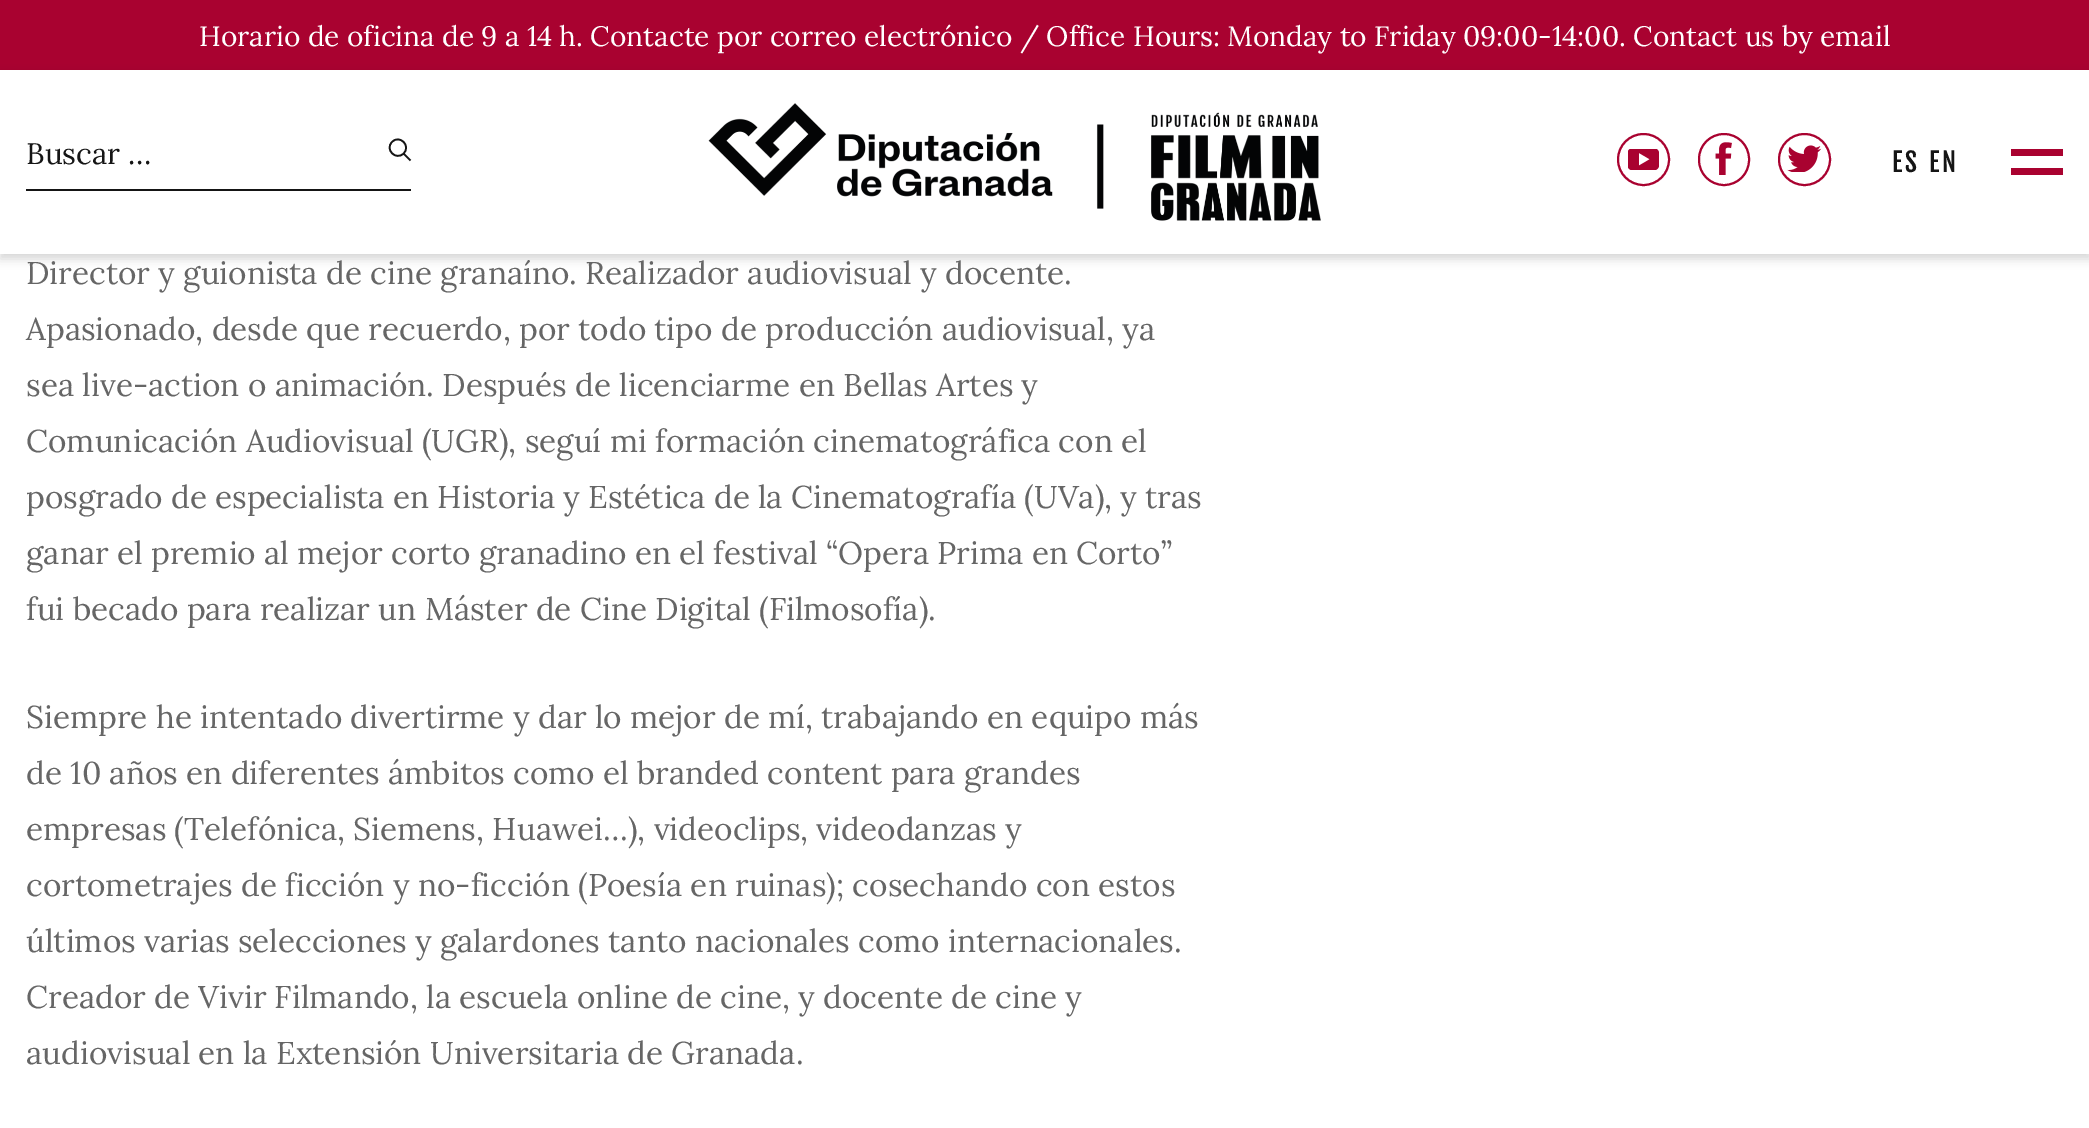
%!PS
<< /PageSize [2089 1128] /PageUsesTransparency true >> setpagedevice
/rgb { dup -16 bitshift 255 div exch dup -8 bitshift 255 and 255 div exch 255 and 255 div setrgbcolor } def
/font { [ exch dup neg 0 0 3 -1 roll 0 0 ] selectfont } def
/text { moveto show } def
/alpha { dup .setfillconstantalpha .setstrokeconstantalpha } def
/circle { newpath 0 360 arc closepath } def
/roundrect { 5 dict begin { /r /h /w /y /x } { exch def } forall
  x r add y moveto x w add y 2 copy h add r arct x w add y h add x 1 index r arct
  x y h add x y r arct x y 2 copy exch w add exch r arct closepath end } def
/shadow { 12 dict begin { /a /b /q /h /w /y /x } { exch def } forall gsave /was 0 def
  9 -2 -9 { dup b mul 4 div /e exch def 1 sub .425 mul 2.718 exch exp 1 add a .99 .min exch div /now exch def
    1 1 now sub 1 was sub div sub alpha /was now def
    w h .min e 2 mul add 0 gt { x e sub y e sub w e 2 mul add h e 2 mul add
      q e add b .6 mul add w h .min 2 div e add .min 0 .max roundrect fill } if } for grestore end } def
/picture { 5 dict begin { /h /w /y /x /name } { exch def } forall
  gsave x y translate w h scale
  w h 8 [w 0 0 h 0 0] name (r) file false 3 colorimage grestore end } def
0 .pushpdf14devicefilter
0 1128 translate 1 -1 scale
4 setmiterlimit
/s1 { /Lora-Regular 28 font 16#FFFFFF rgb } def
/s2 { /Lora-Regular 29.75 font 16#151515 rgb } def
/s3 { /Lora-Regular 31.5 font 16#666666 rgb } def
16#FFFFFF rgb
0 0 2089 1128 rectfill
16#A90230 rgb
0 0 2089 70 rectfill
s1
(Horario de oficina de 9 a 14 h. Contacte por correo electrónico / Office Hours: Monday to Friday 09:00-14:00. Contact us by email) 199 46 text
16#000000 rgb
0 75 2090 184 0 5 0.16 shadow
16#FFFFFF rgb
0 70 2089 184 rectfill
16#151515 rgb
26 189 385 2 rectfill
s2
(Buscar …) 26 164 text
1.7 setlinewidth
392 142 moveto 399.5 134 411.5 146 403.5 153.5 curveto 396 161 384.5 149.5 392 142 curveto closepath 403.5 153.5 moveto 410.5 160.5 lineto stroke
(pic1.raw) 708 103 613 118 picture
16#A90230 rgb
2 setlinewidth
1643.5 159.5 25.5 circle stroke
(pic2.raw) 1628 149 31 21 picture
1699 134 50 51 25 roundrect stroke
(pic3.raw) 1715 142 17 33 picture
1804.5 159.5 25.5 circle stroke
(pic4.raw) 1787 145 35 27 picture
/FjallaOne-Regular 26 font
16#151515 rgb
1892 172 moveto 3 0 (ES) ashow
1929 172 moveto 3 0 (EN) ashow
16#A90230 rgb
2011 149 52 7 rectfill
2011 168 52 7 rectfill
s3
(Director y guionista de cine granaíno. Realizador audiovisual y docente.) 26 284 text
(Apasionado, desde que recuerdo, por todo tipo de producción audiovisual, ya) 26 340 text
(sea live-action o animación. Después de licenciarme en Bellas Artes y) 26 396 text
(Comunicación Audiovisual \(UGR\), seguí mi formación cinematográfica con el) 26 452 text
(posgrado de especialista en Historia y Estética de la Cinematografía \(UVa\), y tras) 26 508 text
(ganar el premio al mejor corto granadino en el festival “Opera Prima en Corto”) 26 564 text
(fui becado para realizar un Máster de Cine Digital \(Filmosofía\).) 26 620 text
(Siempre he intentado divertirme y dar lo mejor de mí, trabajando en equipo más) 26 728 text
(de 10 años en diferentes ámbitos como el branded content para grandes) 26 784 text
(empresas \(Telefónica, Siemens, Huawei…\), videoclips, videodanzas y) 26 840 text
(cortometrajes de ficción y no-ficción \(Poesía en ruinas\); cosechando con estos) 26 896 text
(últimos varias selecciones y galardones tanto nacionales como internacionales.) 26 952 text
(Creador de Vivir Filmando, la escuela online de cine, y docente de cine y) 26 1008 text
(audiovisual en la Extensión Universitaria de Granada.) 26 1064 text
.poppdf14devicefilter showpage
